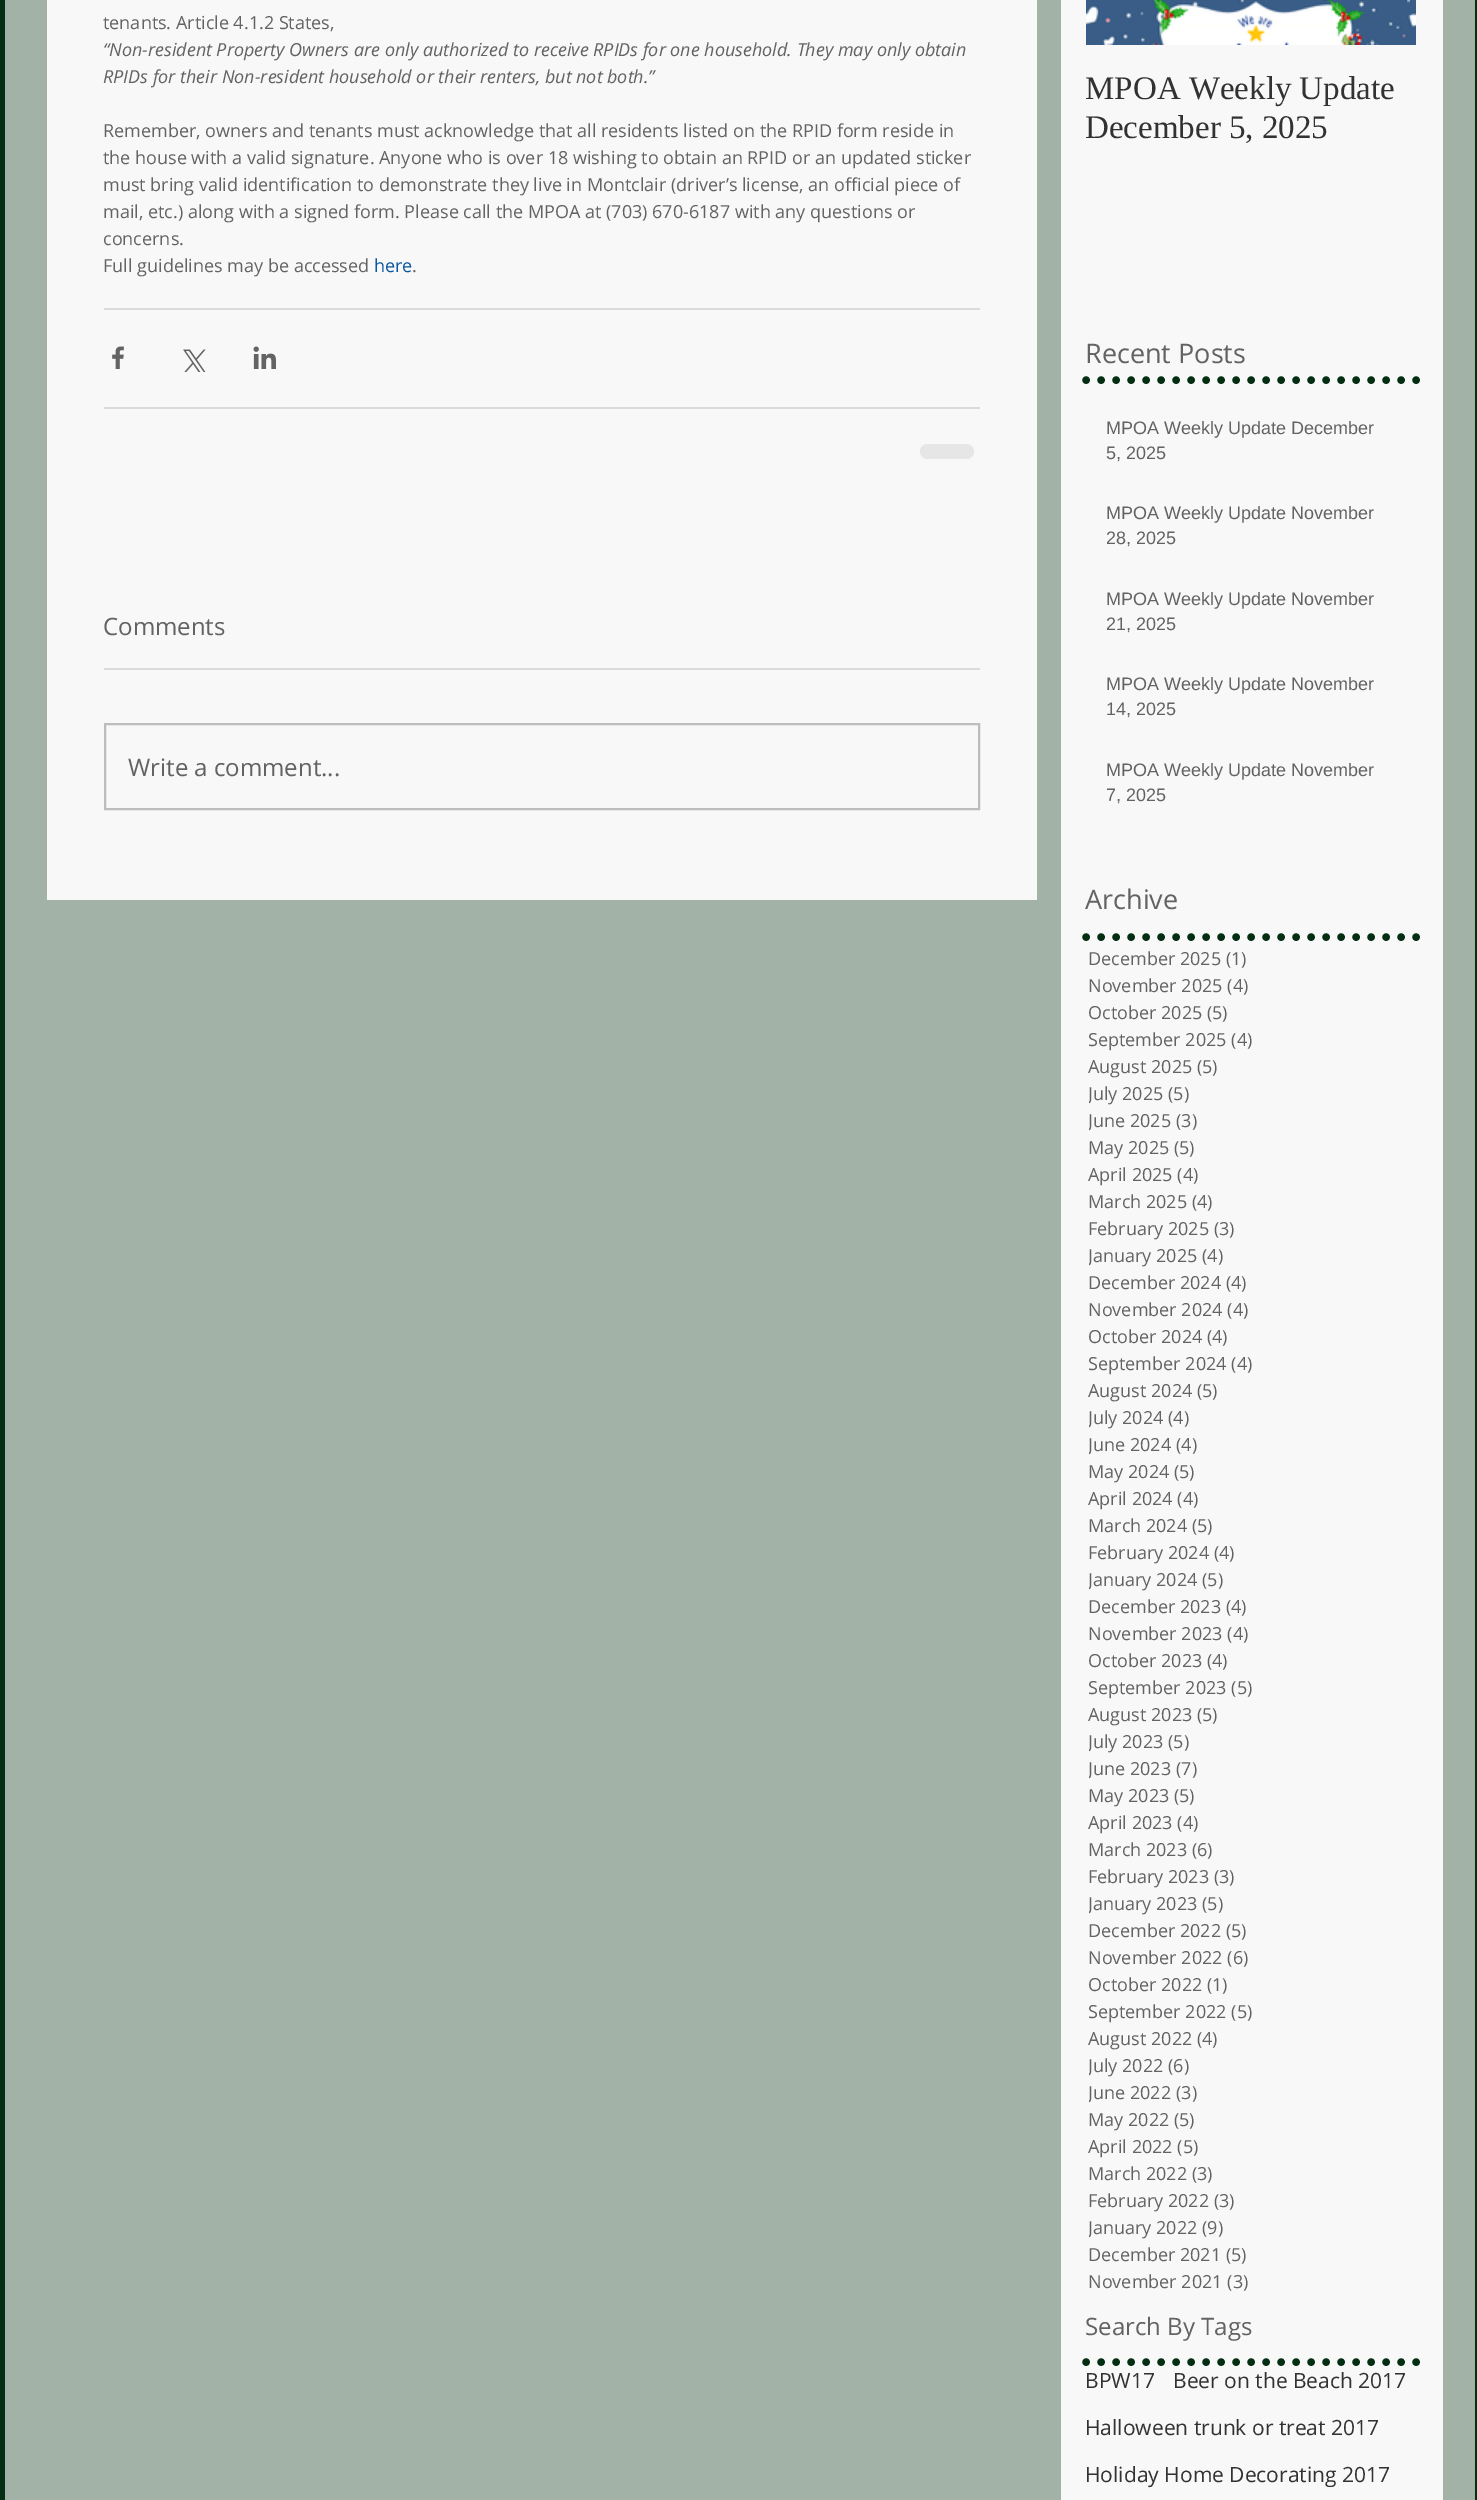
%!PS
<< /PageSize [1477 2500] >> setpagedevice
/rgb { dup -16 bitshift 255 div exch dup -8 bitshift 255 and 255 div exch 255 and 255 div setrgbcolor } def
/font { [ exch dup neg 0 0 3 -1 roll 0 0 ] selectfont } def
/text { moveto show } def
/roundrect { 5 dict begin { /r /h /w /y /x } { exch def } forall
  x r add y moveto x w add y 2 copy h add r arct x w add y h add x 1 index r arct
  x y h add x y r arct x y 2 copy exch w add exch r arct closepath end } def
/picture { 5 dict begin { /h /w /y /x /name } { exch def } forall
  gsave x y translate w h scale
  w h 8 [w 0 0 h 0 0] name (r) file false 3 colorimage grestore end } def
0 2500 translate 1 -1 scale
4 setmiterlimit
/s1 { /OpenSans-Regular 18 font 16#636363 rgb } def
/s2 { /OpenSans-Italic 18 font 16#636363 rgb } def
/s3 { /OpenSans-Regular 18 font 16#0957A2 rgb } def
/s4 { /OpenSans-Regular 24 font 16#636363 rgb } def
/s5 { /LiberationSerif-Regular 33 font 16#323232 rgb } def
/s6 { /OpenSans-Regular 27 font 16#636363 rgb } def
/s7 { /LiberationSans-Regular 18 font 16#636363 rgb } def
/s8 { /OpenSans-Regular 21 font 16#323232 rgb } def
16#042E11 rgb
0 0 1477 2500 rectfill
16#A3B2A7 rgb
5 0 1470 2500 rectfill
16#F8F8F8 rgb
47 0 990 900 rectfill
s1
(tenants. Article 4.1.2 States,) 103 29 text
s2
(“Non-resident Property Owners are only authorized to receive RPIDs for one household. They may only obtain) 103 56 text
(RPIDs for their Non-resident household or their renters, but not both.”) 103 83 text
s1
(Remember, owners and tenants must acknowledge that all residents listed on the RPID form reside in) 103 137 text
(the house with a valid signature. Anyone who is over 18 wishing to obtain an RPID or an updated sticker) 103 164 text
(must bring valid identification to demonstrate they live in Montclair \(driver’s license, an official piece of) 103 191 text
(mail, etc.\) along with a signed form. Please call the MPOA at \(703\) 670-6187 with any questions or) 103 218 text
(concerns.) 103 245 text
(Full guidelines may be accessed) 103 272 text
s3
(here) 374 272 text
s1
(.) 412 272 text
16#DADADA rgb
104 308 876 2 rectfill
(pic1.raw) 112 346 12 23 picture
(pic2.raw) 183 349 23 23 picture
(pic3.raw) 253 346 23 23 picture
104 407 876 2 rectfill
16#E6E6E6 rgb
920 444 54 15 7.5 roundrect fill
s4
(Comments) 103 635 text
16#DADADA rgb
104 668 876 2 rectfill
16#BDBDBD rgb
2 setlinewidth
105 724 874 85 rectstroke
s4
(Write a comment...) 128 776 text
16#F8F8F8 rgb
1061 0 382 2500 rectfill
(pic4.raw) 1086 0 330 45 picture
s5
(MPOA Weekly Update) 1085 99 text
(December 5, 2025) 1085 138 text
s6
(Recent Posts) 1085 363 text
16#042E11 rgb
7.5 setlinewidth
1 setlinecap
[0 15] 0 setdash
1086 380 moveto 1416 380 lineto stroke
s7
(MPOA Weekly Update December) 1106 434 text
(5, 2025) 1106 459 text
(MPOA Weekly Update November) 1106 519 text
(28, 2025) 1106 544 text
(MPOA Weekly Update November) 1106 605 text
(21, 2025) 1106 630 text
(MPOA Weekly Update November) 1106 690 text
(14, 2025) 1106 715 text
(MPOA Weekly Update November) 1106 776 text
(7, 2025) 1106 801 text
s6
(Archive) 1085 909 text
16#042E11 rgb
1086 937 moveto 1416 937 lineto stroke
s1
(December 2025 \(1\)) 1088 965 text
(November 2025 \(4\)) 1088 992 text
(October 2025 \(5\)) 1088 1019 text
(September 2025 \(4\)) 1088 1046 text
(August 2025 \(5\)) 1088 1073 text
gsave
1089 1079 101 27 rectclip
(July 2025) 1088 1100 text
grestore
(\(5\)) 1168 1100 text
gsave
1089 1106 108 27 rectclip
(June 2025) 1088 1127 text
grestore
(\(3\)) 1176 1127 text
(May 2025 \(5\)) 1088 1154 text
(April 2025 \(4\)) 1088 1181 text
(March 2025 \(4\)) 1088 1208 text
(February 2025 \(3\)) 1088 1235 text
gsave
1089 1241 134 27 rectclip
(January 2025) 1088 1262 text
grestore
(\(4\)) 1202 1262 text
(December 2024 \(4\)) 1088 1289 text
(November 2024 \(4\)) 1088 1316 text
(October 2024 \(4\)) 1088 1343 text
(September 2024 \(4\)) 1088 1370 text
(August 2024 \(5\)) 1088 1397 text
gsave
1089 1403 101 27 rectclip
(July 2024) 1088 1424 text
grestore
(\(4\)) 1168 1424 text
gsave
1089 1430 108 27 rectclip
(June 2024) 1088 1451 text
grestore
(\(4\)) 1176 1451 text
(May 2024 \(5\)) 1088 1478 text
(April 2024 \(4\)) 1088 1505 text
(March 2024 \(5\)) 1088 1532 text
(February 2024 \(4\)) 1088 1559 text
gsave
1089 1565 134 27 rectclip
(January 2024) 1088 1586 text
grestore
(\(5\)) 1202 1586 text
(December 2023 \(4\)) 1088 1613 text
(November 2023 \(4\)) 1088 1640 text
(October 2023 \(4\)) 1088 1667 text
(September 2023 \(5\)) 1088 1694 text
(August 2023 \(5\)) 1088 1721 text
gsave
1089 1727 101 27 rectclip
(July 2023) 1088 1748 text
grestore
(\(5\)) 1168 1748 text
gsave
1089 1754 108 27 rectclip
(June 2023) 1088 1775 text
grestore
(\(7\)) 1176 1775 text
(May 2023 \(5\)) 1088 1802 text
(April 2023 \(4\)) 1088 1829 text
(March 2023 \(6\)) 1088 1856 text
(February 2023 \(3\)) 1088 1883 text
gsave
1089 1889 134 27 rectclip
(January 2023) 1088 1910 text
grestore
(\(5\)) 1202 1910 text
(December 2022 \(5\)) 1088 1937 text
(November 2022 \(6\)) 1088 1964 text
(October 2022 \(1\)) 1088 1991 text
(September 2022 \(5\)) 1088 2018 text
(August 2022 \(4\)) 1088 2045 text
gsave
1089 2051 101 27 rectclip
(July 2022) 1088 2072 text
grestore
(\(6\)) 1168 2072 text
gsave
1089 2078 108 27 rectclip
(June 2022) 1088 2099 text
grestore
(\(3\)) 1176 2099 text
(May 2022 \(5\)) 1088 2126 text
(April 2022 \(5\)) 1088 2153 text
(March 2022 \(3\)) 1088 2180 text
(February 2022 \(3\)) 1088 2207 text
gsave
1089 2213 134 27 rectclip
(January 2022) 1088 2234 text
grestore
(\(9\)) 1202 2234 text
(December 2021 \(5\)) 1088 2261 text
(November 2021 \(3\)) 1088 2288 text
s4
(Search By Tags) 1085 2335 text
16#042E11 rgb
1086 2362 moveto 1416 2362 lineto stroke
s8
(BPW17) 1085 2388 text
(Beer on the Beach 2017) 1173 2388 text
(Halloween trunk or treat 2017) 1085 2435 text
(Holiday Home Decorating 2017) 1085 2482 text
showpage
